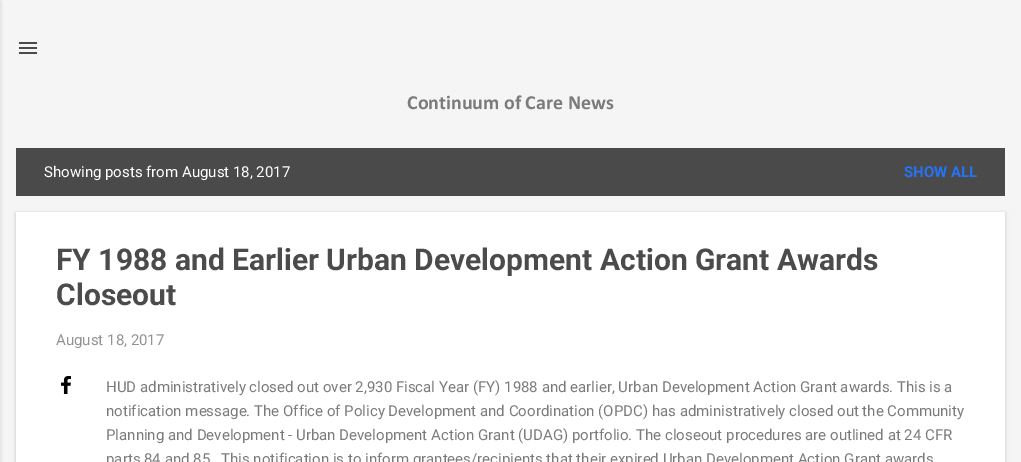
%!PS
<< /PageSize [1021 462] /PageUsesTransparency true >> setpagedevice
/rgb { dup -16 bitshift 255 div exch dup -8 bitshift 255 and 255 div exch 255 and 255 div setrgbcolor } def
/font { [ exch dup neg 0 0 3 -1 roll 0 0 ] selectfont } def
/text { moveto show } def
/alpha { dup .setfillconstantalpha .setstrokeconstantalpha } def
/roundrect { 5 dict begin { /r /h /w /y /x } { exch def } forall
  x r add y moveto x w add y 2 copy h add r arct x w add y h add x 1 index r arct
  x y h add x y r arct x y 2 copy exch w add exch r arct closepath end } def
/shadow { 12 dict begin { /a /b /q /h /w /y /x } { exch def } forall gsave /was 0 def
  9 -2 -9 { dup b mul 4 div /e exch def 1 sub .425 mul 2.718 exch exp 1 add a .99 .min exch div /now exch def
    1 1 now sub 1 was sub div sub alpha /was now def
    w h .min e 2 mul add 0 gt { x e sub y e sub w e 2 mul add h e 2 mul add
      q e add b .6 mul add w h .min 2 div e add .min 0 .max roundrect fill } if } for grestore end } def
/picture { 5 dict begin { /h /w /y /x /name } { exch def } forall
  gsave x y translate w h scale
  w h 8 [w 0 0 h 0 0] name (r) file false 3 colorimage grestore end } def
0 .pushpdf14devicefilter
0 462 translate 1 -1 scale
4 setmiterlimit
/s1 { /Calibri-Bold 20 font 16#7B7B7B rgb } def
/s2 { /Roboto-Regular 15 font 16#FFFFFF rgb } def
/s3 { /Roboto-Bold 15 font 16#2673F3 rgb } def
/s4 { /Roboto-Bold 30 font 16#4B4B4B rgb } def
/s5 { /Roboto-Regular 15 font 16#929292 rgb } def
/s6 { /Roboto-Regular 15 font 16#7B7B7B rgb } def
16#F5F5F5 rgb
0 0 1021 462 rectfill
16#000000 rgb
-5 1 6 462 0 1.5 0.1 shadow
(pic1.raw) 19 42 18 12 picture
s1
(Continuum of Care News) 407 109 text
16#4A4A4A rgb
16 148 989 48 rectfill
s2
(Showing posts from August 18, 2017) 44 177 text
s3
(SHOW ALL) 904 177 text
16#45494D rgb
16 213 989 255 0 2 0.3 shadow
16#FFFFFF rgb
16 212 989 250 rectfill
s4
(FY 1988 and Earlier Urban Development Action Grant Awards) 56 270 text
(Closeout) 56 305 text
s5
(August 18, 2017) 56 345 text
(pic2.raw) 61 376 10 18 picture
s6
(HUD administratively closed out over 2,930 Fiscal Year \(FY\) 1988 and earlier, Urban Development Action Grant awards. This is a) 106 392 text
(notification message. The Office of Policy Development and Coordination \(OPDC\) has administratively closed out the Community) 106 416 text
(Planning and Development - Urban Development Action Grant \(UDAG\) portfolio. The closeout procedures are outlined at 24 CFR) 106 440 text
(parts 84 and 85) 106 464 text
(This notification is to inform grantees/recipients that their expired Urban Development Action Grant awards) 221 464 text
.poppdf14devicefilter showpage
